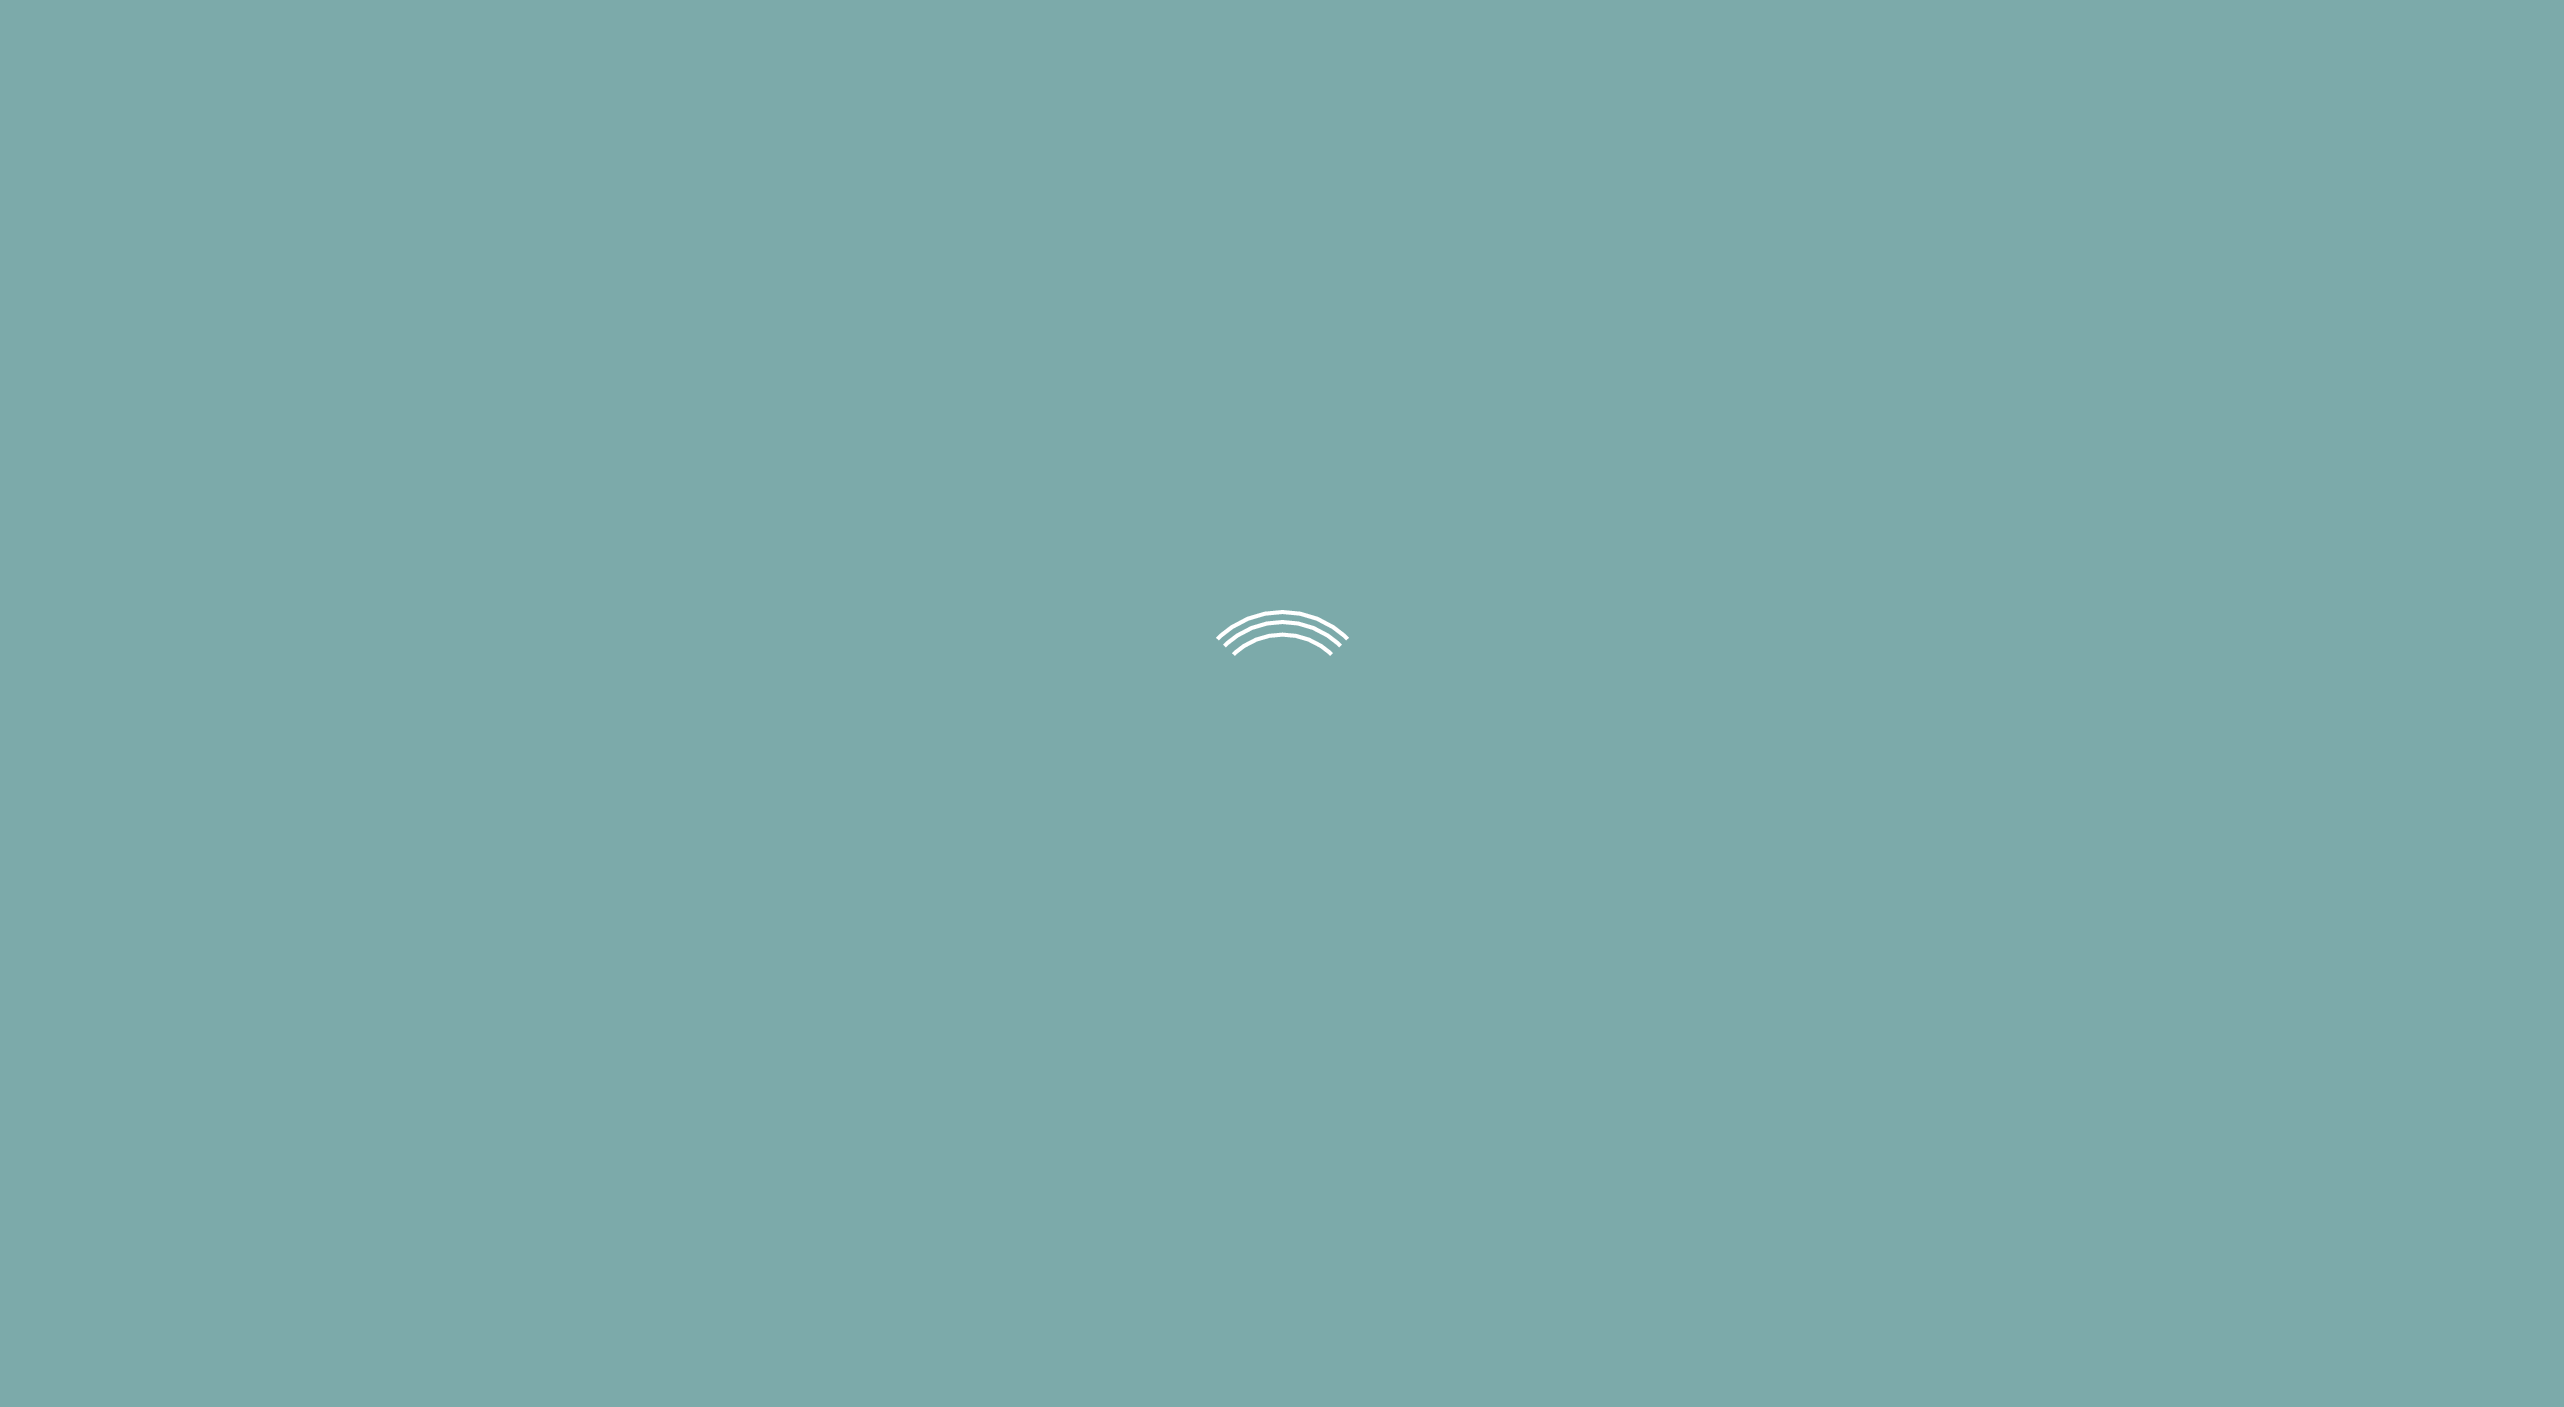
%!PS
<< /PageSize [2564 1407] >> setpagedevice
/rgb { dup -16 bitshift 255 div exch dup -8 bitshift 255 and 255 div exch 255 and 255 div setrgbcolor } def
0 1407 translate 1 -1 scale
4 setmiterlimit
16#7CAAAA rgb
0 0 2564 1407 rectfill
16#FFFFFF rgb
3.8 setlinewidth
1217.5 639 moveto 1253 603 1312 603 1347.5 639 curveto stroke
1224.5 646 moveto 1256.5 614 1308.5 614 1340.5 646 curveto stroke
1233.5 654.5 moveto 1260 628 1305 628 1331.5 654.5 curveto stroke
showpage
